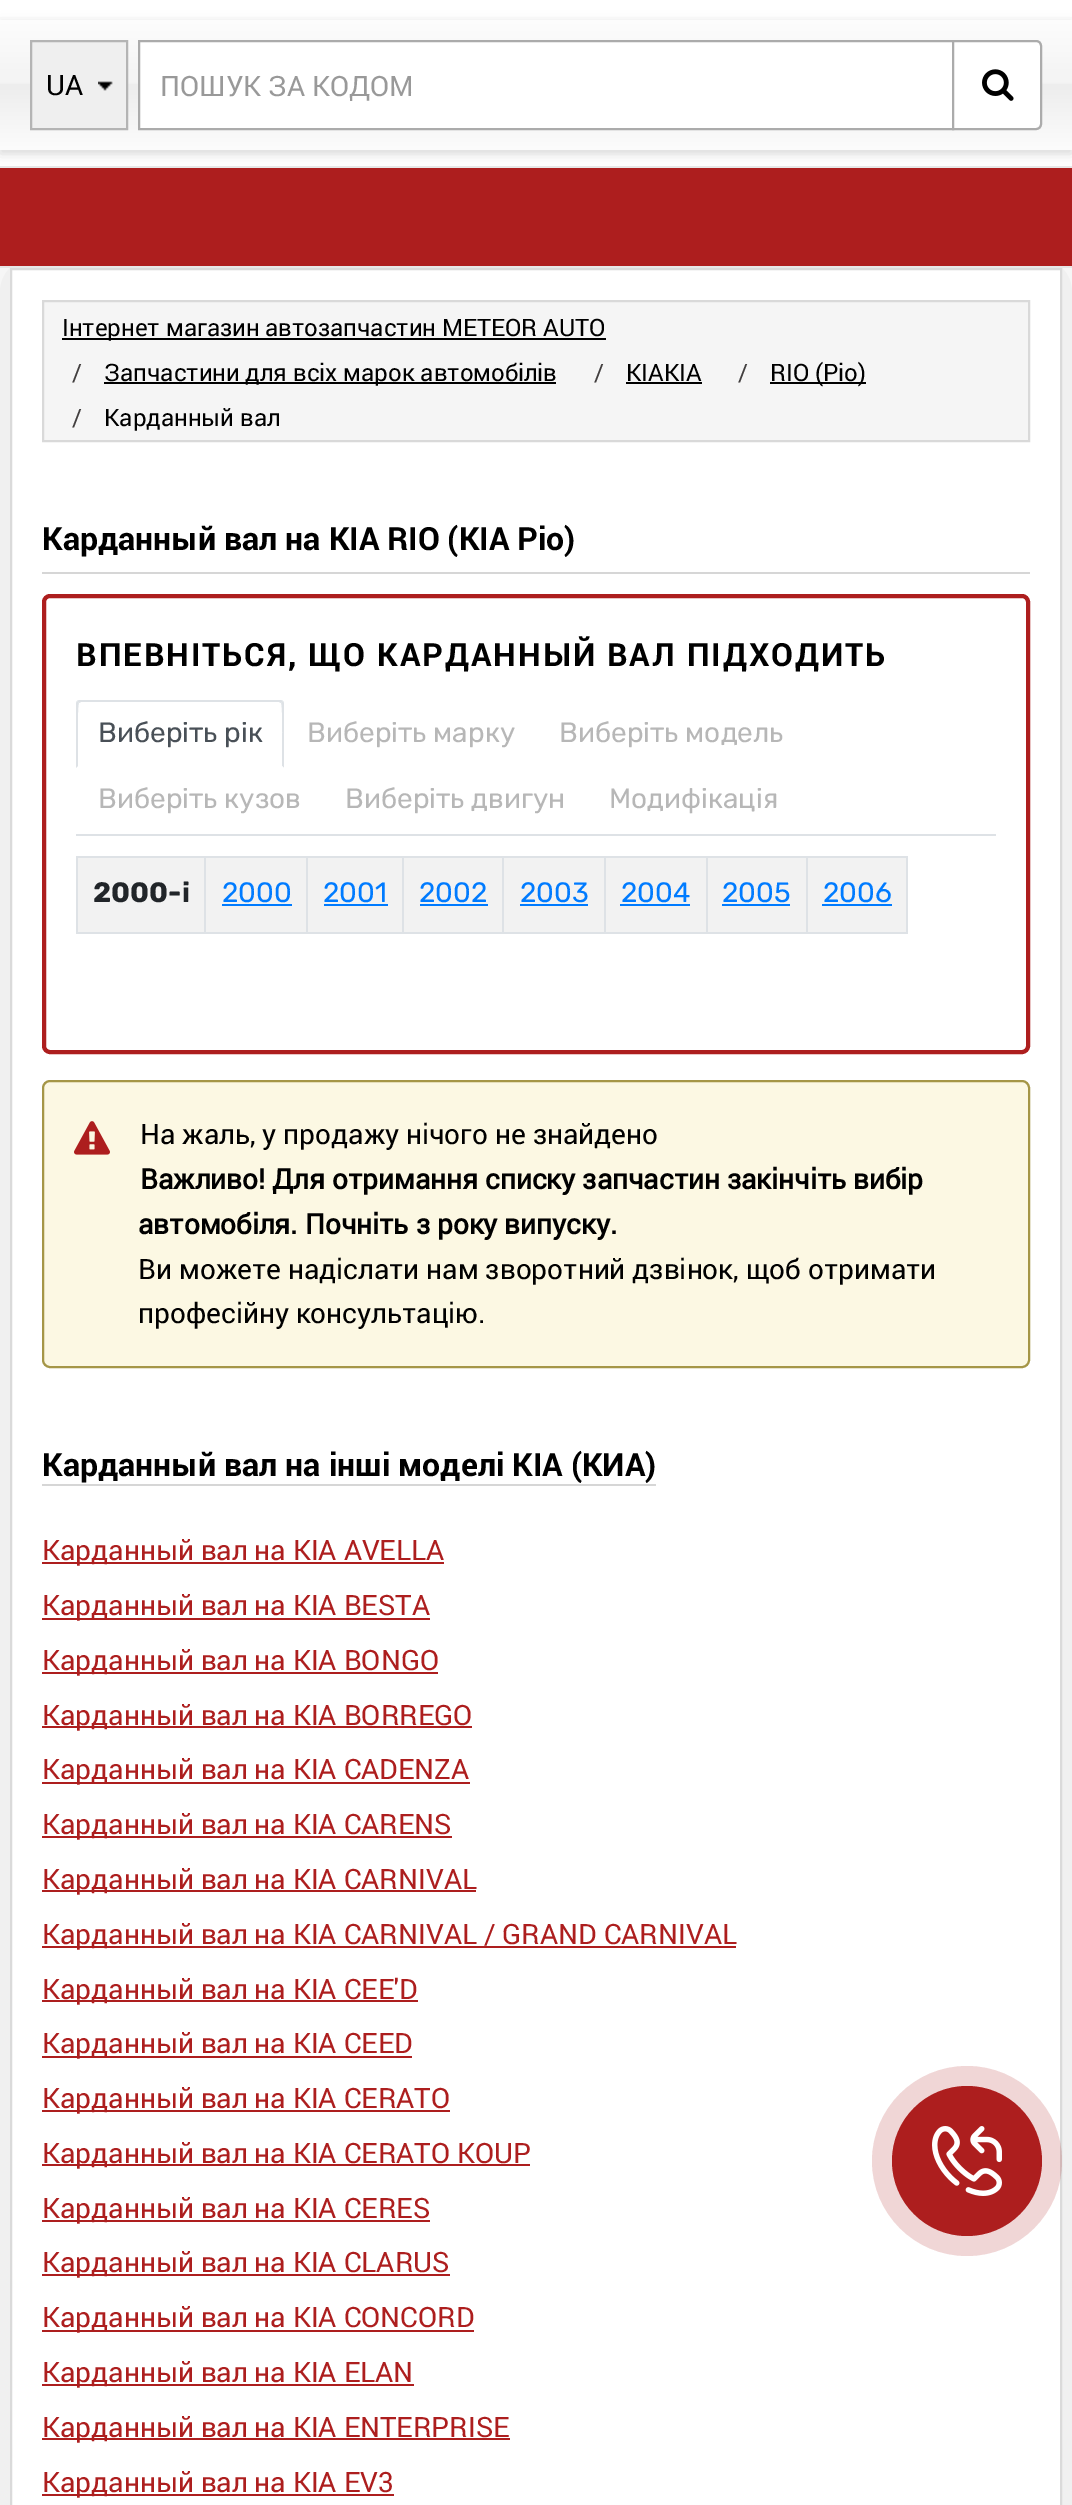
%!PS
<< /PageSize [1072 2505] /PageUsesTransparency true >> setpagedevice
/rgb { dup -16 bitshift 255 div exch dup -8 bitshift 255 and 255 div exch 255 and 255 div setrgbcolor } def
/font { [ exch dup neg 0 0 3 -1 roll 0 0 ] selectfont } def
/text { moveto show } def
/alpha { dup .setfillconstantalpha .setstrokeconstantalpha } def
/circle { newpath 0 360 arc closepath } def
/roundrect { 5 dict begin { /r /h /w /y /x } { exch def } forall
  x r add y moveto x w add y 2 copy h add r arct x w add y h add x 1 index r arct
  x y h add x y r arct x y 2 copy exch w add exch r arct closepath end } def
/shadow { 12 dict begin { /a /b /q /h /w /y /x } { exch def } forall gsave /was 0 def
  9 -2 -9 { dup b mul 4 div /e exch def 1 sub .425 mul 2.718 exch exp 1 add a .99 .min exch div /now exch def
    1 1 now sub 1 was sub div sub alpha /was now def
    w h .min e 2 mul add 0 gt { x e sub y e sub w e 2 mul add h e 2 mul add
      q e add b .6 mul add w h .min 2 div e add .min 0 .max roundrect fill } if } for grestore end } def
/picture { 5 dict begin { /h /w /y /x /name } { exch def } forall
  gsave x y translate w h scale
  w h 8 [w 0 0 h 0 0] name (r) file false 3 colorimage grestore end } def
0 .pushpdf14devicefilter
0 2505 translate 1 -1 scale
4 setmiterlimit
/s1 { /Roboto-Regular 28 font 16#000000 rgb } def
/s2 { /Roboto-Regular 28 font 16#999999 rgb } def
/s3 { /Roboto-Regular 24 font 16#000000 rgb } def
/s4 { /Roboto-Regular 24 font 16#423F3F rgb } def
/s5 { /Roboto-Bold 32 font 16#000000 rgb } def
/s6 { /Rubik-Regular 28 font 16#495057 rgb } def
/s7 { /Rubik-Regular 28 font 16#B7B7B7 rgb } def
/s8 { /Rubik-Bold 28 font 16#212529 rgb } def
/s9 { /Rubik-Regular 28 font 16#007BFF rgb } def
/s10 { /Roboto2-Bold 28 font 16#000000 rgb } def
/s11 { /Roboto-Regular 28 font 16#AD1E1E rgb } def
16#FFFFFF rgb
0 0 1072 2505 rectfill
gsave
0 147 moveto 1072 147 lineto 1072 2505 lineto 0 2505 lineto closepath 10 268 moveto 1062 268 lineto 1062 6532 lineto 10 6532 lineto closepath eoclip newpath
16#E0E0E0 rgb
10 268 1052 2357 0 40 1 shadow
grestore
16#E7E7E7 rgb
0 166 1072 2 rectfill
gsave 0 17 moveto 1072 17 lineto 1072 155 lineto 0 155 lineto closepath clip newpath
<< /ShadingType 2 /ColorSpace /DeviceRGB /Coords [536 0 536 166] /Extend [true true] /Function << /FunctionType 3 /Domain [0 1] /Functions [<< /FunctionType 2 /Domain [0 1] /C0 [1 1 1] /C1 [0.953 0.953 0.953] /N 1 >> << /FunctionType 2 /Domain [0 1] /C0 [0.953 0.953 0.953] /C1 [0.929 0.929 0.929] /N 1 >> << /FunctionType 2 /Domain [0 1] /C0 [0.929 0.929 0.929] /C1 [1 1 1] /N 1 >>] /Bounds [0.5 0.51] /Encode [0 1 0 1 0 1] >> >> shfill grestore
gsave
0 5 moveto 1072 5 lineto 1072 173 lineto 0 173 lineto closepath 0 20 moveto 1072 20 lineto 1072 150 lineto 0 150 lineto closepath eoclip newpath
16#DADADA rgb
0 24 1072 130 0 6 1 shadow
grestore
16#EFEFEF rgb
32 42 94 86 rectfill
(pic1.raw) 98 81 15 10 picture
16#B4B4B4 rgb
2 setlinewidth
31 41 96 88 rectstroke
s1
(UA) 46 95 text
16#FFFFFF rgb
139 41 moveto 953 41 lineto 953 129 lineto 139 129 lineto closepath gsave fill grestore
16#ABABAB rgb
stroke
s2
(ПОШУК ЗА КОДОМ) 160 96 text
16#FFFFFF rgb
953 41 moveto 1036 41 lineto 1039 41 1041 43 1041 46 curveto 1041 124 lineto 1041 127 1039 129 1036 129 curveto 953 129 lineto closepath gsave fill grestore
16#ABABAB rgb
stroke
(pic2.raw) 982 69 32 32 picture
16#AD1E1E rgb
0 168 1072 98 rectfill
16#E7E7E7 rgb
0 266 1072 2 rectfill
16#DADADA rgb
11 269 1050 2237 rectstroke
16#F5F5F5 rgb
43 301 moveto 1029 301 lineto 1029 441 lineto 43 441 lineto closepath gsave fill grestore
16#D9D9D9 rgb
stroke
16#000000 rgb
62 338 544 2 rectfill
s3
(Інтернет магазин автозапчастин METEOR AUTO) 62 336 text
s4
(/) 72 381 text
16#000000 rgb
104 382 452 2 rectfill
(Запчастини для всіх марок автомобілів) 104 381 text
s4
(/) 594 381 text
s3
(KIAКІА) 626 381 text
626 382 76 2 rectfill
s4
(/) 738 381 text
16#000000 rgb
770 382 96 2 rectfill
(RIO \(Ріо\)) 770 381 text
s4
(/) 72 426 text
s3
(Карданный вал) 104 426 text
16#D6D6D6 rgb
42 572 988 2 rectfill
s5
(Карданный вал на KIA RIO \(КІА Ріо\)) 42 550 text
16#AD1E1E rgb
4 setlinewidth
44 596 984 456 6 roundrect stroke
16#000000 rgb
76 666 moveto 2 0 (ВПЕВНІТЬСЯ, ЩО КАРДАННЫЙ ВАЛ ПІДХОДИТЬ) ashow
16#DEE2E6 rgb
76 834 920 2 rectfill
81 700 moveto 80 700 78 700 77 701 curveto 79 703 lineto 81 702 lineto 279 702 lineto 281 703 lineto 283 701 lineto 282 700 280 700 279 700 curveto closepath fill
284 768 moveto 284 705 lineto 284 704 284 702 283 701 curveto 281 703 lineto 283 704 282 759 282 766 curveto closepath fill
16#FFFFFF rgb
284 768 moveto 282 766 lineto 78 766 lineto 76 768 lineto closepath fill
16#DEE2E6 rgb
76 768 moveto 78 766 lineto 78 759 77 704 79 703 curveto 77 701 lineto 76 702 76 704 76 705 curveto closepath fill
s6
(Виберіть рік) 98 742 text
s7
(Виберіть марку) 307 742 text
(Виберіть модель) 559 742 text
(Виберіть кузов) 98 808 text
(Виберіть двигун) 345 808 text
(Модифікація) 609 808 text
16#F2F2F2 rgb
78 858 828 74 rectfill
16#DEE2E6 rgb
806 856 102 2 rectfill
906 856 2 78 rectfill
806 932 102 2 rectfill
806 856 2 78 rectfill
706 856 102 2 rectfill
706 932 102 2 rectfill
706 856 2 78 rectfill
604 856 104 2 rectfill
604 932 104 2 rectfill
604 856 2 78 rectfill
502 856 104 2 rectfill
502 932 104 2 rectfill
502 856 2 78 rectfill
402 856 102 2 rectfill
402 932 102 2 rectfill
402 856 2 78 rectfill
306 856 98 2 rectfill
306 932 98 2 rectfill
306 856 2 78 rectfill
204 856 104 2 rectfill
204 932 104 2 rectfill
204 856 2 78 rectfill
76 856 130 2 rectfill
76 932 130 2 rectfill
76 856 2 78 rectfill
s8
(2000-i) 93 902 text
s9
(2000) 222 902 text
222 904 70 2 rectfill
(2001) 323 902 text
324 904 64 2 rectfill
(2002) 419 902 text
420 904 68 2 rectfill
(2003) 520 902 text
520 904 68 2 rectfill
(2004) 621 902 text
620 904 70 2 rectfill
(2005) 722 902 text
722 904 68 2 rectfill
(2006) 823 902 text
822 904 70 2 rectfill
16#FCF8E3 rgb
43 1081 986 286 7 roundrect gsave fill grestore
16#A59647 rgb
2 setlinewidth
stroke
(pic3.raw) 74 1121 36 34 picture
s1
(На жаль, у продажу нічого не знайдено) 140 1144 text
s10
(Важливо! Для отримання списку запчастин закінчіть вибір) 140 1189 text
(автомобіля. Почніть з року випуску.) 138 1234 text
s1
(Ви можете надіслати нам зворотний дзвінок, щоб отримати) 138 1279 text
(професійну консультацію.) 138 1323 text
s5
(Карданный вал на інші моделі KIA \(КИА\)) 42 1476 text
16#D6D6D6 rgb
42 1484 614 2 rectfill
16#AD1E1E rgb
42 1562 402 2 rectfill
s11
(Карданный вал на KIA AVELLA) 42 1560 text
42 1618 388 2 rectfill
(Карданный вал на KIA BESTA) 42 1615 text
42 1672 396 2 rectfill
(Карданный вал на KIA BONGO) 42 1670 text
42 1726 430 2 rectfill
(Карданный вал на KIA BORREGO) 42 1725 text
42 1782 428 2 rectfill
(Карданный вал на KIA CADENZA) 42 1779 text
42 1836 410 2 rectfill
(Карданный вал на KIA CARENS) 42 1834 text
42 1890 434 2 rectfill
(Карданный вал на KIA CARNIVAL) 42 1889 text
42 1946 694 2 rectfill
(Карданный вал на KIA CARNIVAL / GRAND CARNIVAL) 42 1944 text
42 2000 376 2 rectfill
(Карданный вал на KIA CEE'D) 42 1999 text
42 2056 370 2 rectfill
(Карданный вал на KIA CEED) 42 2053 text
42 2110 408 2 rectfill
(Карданный вал на KIA CERATO) 42 2108 text
42 2164 488 2 rectfill
(Карданный вал на KIA CERATO KOUP) 42 2163 text
42 2220 388 2 rectfill
(Карданный вал на KIA CERES) 42 2218 text
42 2274 408 2 rectfill
(Карданный вал на KIA CLARUS) 42 2272 text
42 2330 432 2 rectfill
(Карданный вал на KIA CONCORD) 42 2327 text
42 2384 372 2 rectfill
(Карданный вал на KIA ELAN) 42 2382 text
42 2438 468 2 rectfill
(Карданный вал на KIA ENTERPRISE) 42 2437 text
42 2494 352 2 rectfill
(Карданный вал на KIA EV3) 42 2492 text
0.18 alpha
967 2161 95 circle fill
1 alpha
967 2161 75 circle fill
(pic4.raw) 932 2126 70 70 picture
.poppdf14devicefilter showpage
